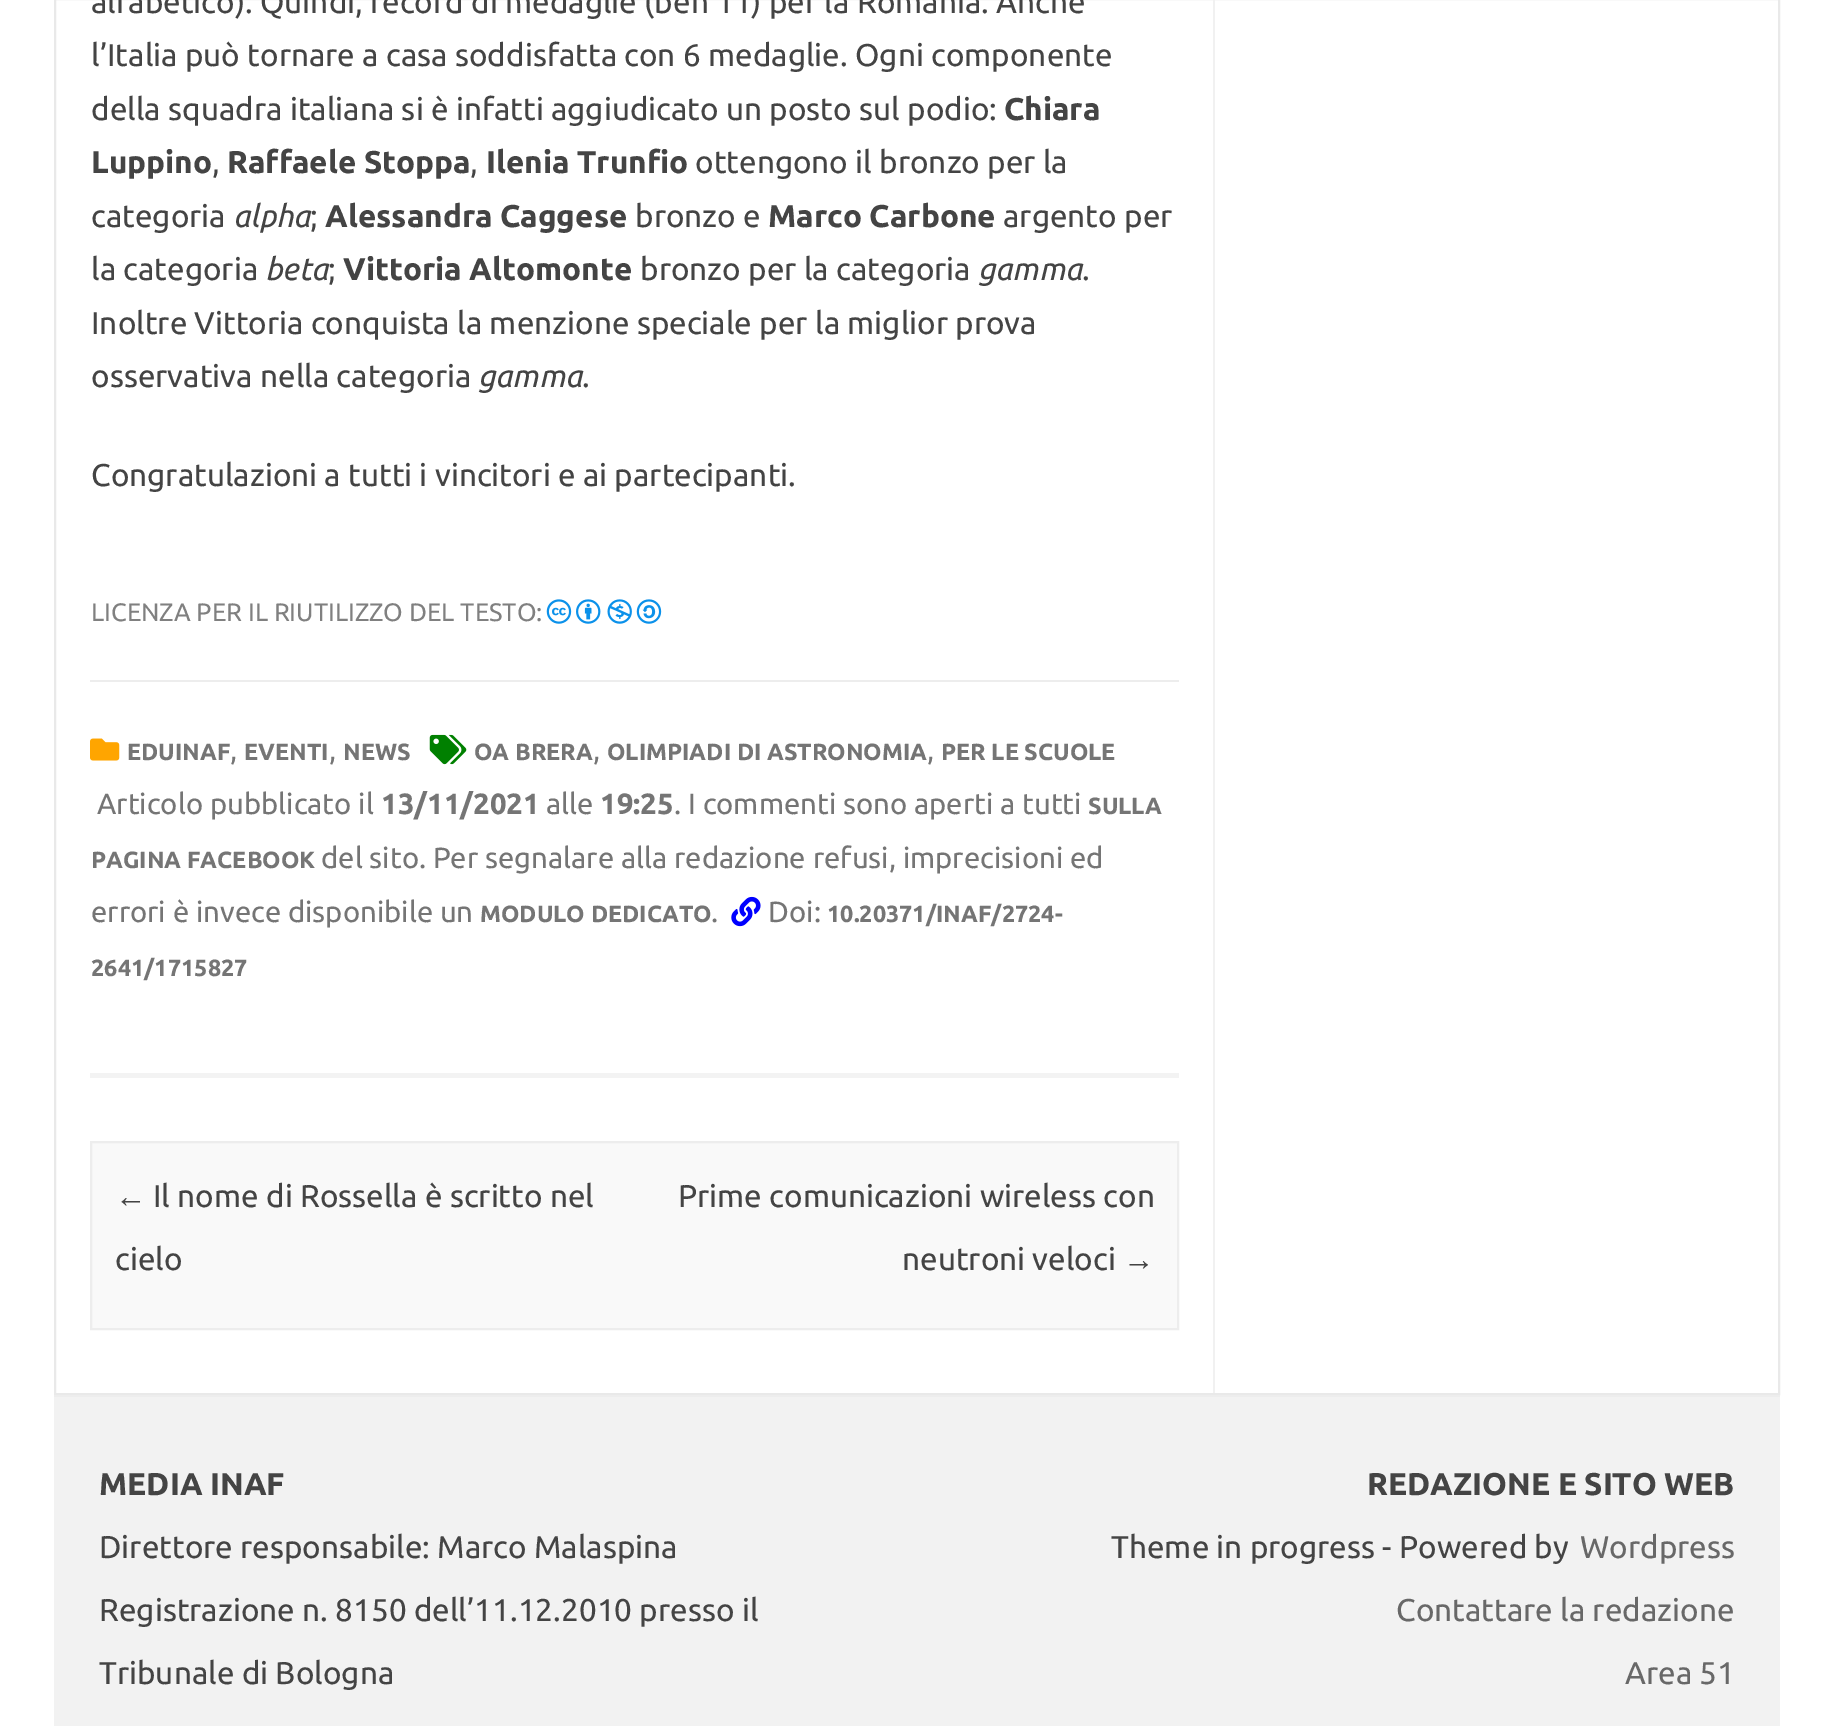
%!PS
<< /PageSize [1833 1726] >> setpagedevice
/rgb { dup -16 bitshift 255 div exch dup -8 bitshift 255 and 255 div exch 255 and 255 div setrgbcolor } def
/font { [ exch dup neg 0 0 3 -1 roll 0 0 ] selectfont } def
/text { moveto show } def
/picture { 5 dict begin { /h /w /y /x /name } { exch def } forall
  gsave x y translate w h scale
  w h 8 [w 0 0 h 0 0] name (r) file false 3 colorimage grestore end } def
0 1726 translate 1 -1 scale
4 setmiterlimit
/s1 { /Ubuntu-Regular 31.5 font 16#444444 rgb } def
/s2 { /Ubuntu-Bold 31.5 font 16#444444 rgb } def
/s3 { /Ubuntu-Italic 31.5 font 16#444444 rgb } def
/s4 { /Ubuntu-Regular 25.25 font 16#808080 rgb } def
/s5 { /Ubuntu-Bold 23.4 font 16#757575 rgb } def
/s6 { /Ubuntu-Regular 29.25 font 16#757575 rgb } def
/s7 { /Ubuntu-Bold 29.25 font 16#757575 rgb } def
/s8 { /LiberationSans-Regular 31.5 font 16#444444 rgb } def
/s9 { /Ubuntu-Regular 31.5 font 16#686868 rgb } def
16#FFFFFF rgb
0 0 1833 1726 rectfill
16#E9E9E9 rgb
2 setlinewidth
55 -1 1724 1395 rectstroke
16#F1F1F1 rgb
1213 0 2 1393 rectfill
16#F3F3F3 rgb
90 1073 1089 5 rectfill
s1
(alfabetico\). Quindi, record di medaglie \(ben 11\) per la Romania. Anche) 91 13 text
(l’Italia può tornare a casa soddisfatta con 6 medaglie. Ogni componente) 91 66 text
(della squadra italiana si è infatti aggiudicato un posto sul podio:) 91 120 text
s2
(Chiara) 1004 120 text
(Luppino) 91 173 text
s1
(,) 212 173 text
s2
(Raffaele Stoppa) 227 173 text
s1
(,) 470 173 text
s2
(Ilenia Trunfio) 486 173 text
s1
(ottengono il bronzo per la) 695 173 text
(categoria) 91 227 text
s3
(alpha) 233 227 text
s1
(;) 310 227 text
s2
(Alessandra Caggese) 325 227 text
s1
(bronzo e) 635 227 text
s2
(Marco Carbone) 768 227 text
s1
(argento per) 1003 227 text
(la categoria) 91 280 text
s3
(beta) 265 280 text
s1
(;) 328 280 text
s2
(Vittoria Altomonte) 343 280 text
s1
(bronzo per la categoria) 640 280 text
s3
(gamma) 978 280 text
s1
(.) 1082 280 text
(Inoltre Vittoria conquista la menzione speciale per la miglior prova) 91 334 text
(osservativa nella categoria) 91 387 text
s3
(gamma) 478 387 text
s1
(.) 582 387 text
(Congratulazioni a tutti i vincitori e ai partecipanti.) 91 486 text
s4
(LICENZA PER IL RIUTILIZZO DEL TESTO:) 91 621 text
(pic1.raw) 546 599 26 25 picture
(pic2.raw) 576 599 25 25 picture
(pic3.raw) 607 599 25 25 picture
(pic4.raw) 636 599 26 25 picture
16#EDEDED rgb
90 680 1089 2 rectfill
(pic5.raw) 90 738 30 23 picture
s5
(EDUINAF) 127 760 text
s6
(,) 230 760 text
s5
(EVENTI) 244 760 text
s6
(,) 329 760 text
s5
(NEWS) 343 760 text
(pic6.raw) 429 734 38 31 picture
(OA BRERA) 474 760 text
s6
(,) 593 760 text
s5
(OLIMPIADI DI ASTRONOMIA) 607 760 text
s6
(,) 927 760 text
s5
(PER LE SCUOLE) 941 760 text
s6
(Articolo pubblicato il) 97 814 text
s7
(13/11/2021) 381 814 text
s6
(alle) 546 814 text
s7
(19:25) 600 814 text
s6
(. I commenti sono aperti a tutti) 674 814 text
s5
(SULLA) 1088 814 text
(PAGINA FACEBOOK) 91 868 text
s6
(del sito. Per segnalare alla redazione refusi, imprecisioni ed) 321 868 text
(errori è invece disponibile un) 91 922 text
s5
(MODULO DEDICATO) 480 922 text
s6
(.) 711 922 text
(pic7.raw) 731 896 30 31 picture
(Doi:) 768 922 text
s5
(10.20371/INAF/2724-) 827 922 text
(2641/1715827) 91 976 text
16#F9F9F9 rgb
91 1142 moveto 1178 1142 lineto 1178 1329 lineto 91 1329 lineto closepath gsave fill grestore
16#EDEDED rgb
stroke
s8
(←) 115 1207 text
s1
(Il nome di Rossella è scritto nel) 153 1207 text
(cielo) 115 1270 text
(Prime comunicazioni wireless con) 678 1207 text
(neutroni veloci) 902 1270 text
s8
(→) 1123 1270 text
16#F2F2F2 rgb
54 1397 1726 329 rectfill
16#EDEDED rgb
54 1395 1726 2 rectfill
s2
(MEDIA INAF) 99 1495 text
s1
(Direttore responsabile: Marco Malaspina) 99 1558 text
(Registrazione n. 8150 dell’11.12.2010 presso il) 99 1621 text
(Tribunale di Bologna) 99 1684 text
s2
(REDAZIONE E SITO WEB) 1367 1495 text
s1
(Theme in progress - Powered by) 1111 1558 text
s9
(Wordpress) 1580 1558 text
(Contattare la redazione) 1396 1621 text
(Area 51) 1625 1684 text
showpage
